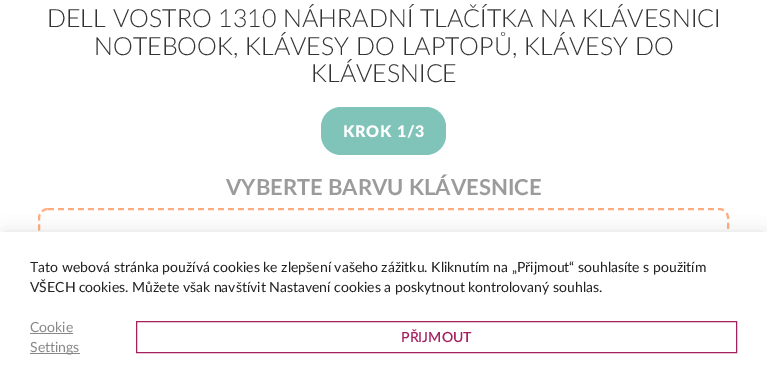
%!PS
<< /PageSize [767 382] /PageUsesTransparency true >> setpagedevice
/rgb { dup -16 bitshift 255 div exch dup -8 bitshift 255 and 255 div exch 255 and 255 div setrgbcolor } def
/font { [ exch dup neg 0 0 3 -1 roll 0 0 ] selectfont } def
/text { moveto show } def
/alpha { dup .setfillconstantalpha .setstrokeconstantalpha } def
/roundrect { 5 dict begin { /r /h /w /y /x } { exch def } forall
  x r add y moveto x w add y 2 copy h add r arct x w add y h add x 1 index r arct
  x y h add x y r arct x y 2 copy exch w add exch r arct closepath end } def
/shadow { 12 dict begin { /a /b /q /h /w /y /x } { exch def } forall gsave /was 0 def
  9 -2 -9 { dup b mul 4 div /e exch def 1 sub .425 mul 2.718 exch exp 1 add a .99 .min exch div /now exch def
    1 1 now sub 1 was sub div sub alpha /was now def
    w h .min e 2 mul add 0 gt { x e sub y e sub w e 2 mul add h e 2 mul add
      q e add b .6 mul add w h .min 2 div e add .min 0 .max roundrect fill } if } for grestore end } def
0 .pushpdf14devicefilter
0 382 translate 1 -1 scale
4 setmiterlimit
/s1 { /Lato-Light 25 font 16#333333 rgb } def
/s2 { /Lato-Bold 22 font 16#9B9B9B rgb } def
/s3 { /Lato-Regular 14 font 16#222222 rgb } def
/s4 { /Lato-Regular 14 font 16#888888 rgb } def
/s5 { /Lato-SemiBold 14 font 16#A5205F rgb } def
16#FFFFFF rgb
0 0 767 382 rectfill
s1
(DELL VOSTRO 1310 NÁHRADNÍ TLAČÍTKA NA KLÁVESNICI) 47 27 text
(NOTEBOOK, KLÁVESY DO LAPTOPŮ, KLÁVESY DO) 94 55 text
(KLÁVESNICE) 311 82 text
16#80C3B9 rgb
321 107 125 48 20 roundrect fill
/Lato-ExtraBold 16 font
16#FFFFFF rgb
343 137 moveto 0.75 0 (KROK 1/3) ashow
s2
(VYBERTE BARVU KLÁVESNICE) 226 195 text
16#FFAD80 rgb
2 setlinewidth
[6 4] 0 setdash
48 209 moveto 719 209 lineto 724 209 728 213 728 218 curveto 728 297 lineto 728 302 724 306 719 306 curveto 48 306 lineto 43 306 39 302 39 297 curveto 39 218 lineto 39 213 43 209 48 209 curveto closepath stroke
16#000000 rgb
5 237 757 140 0 10 0.2 shadow
16#FFFFFF rgb
0 232 767 150 rectfill
s3
(Tato webová stránka používá cookies ke zlepšení vašeho zážitku. Kliknutím na „Přijmout“ souhlasíte s použitím) 30 272 text
(VŠECH cookies. Můžete však navštívit Nastavení cookies a poskytnout kontrolovaný souhlas.) 30 292 text
s4
(Cookie) 30 332 text
30 333 43 1 rectfill
30 353 50 1 rectfill
(Settings) 30 352 text
16#A5205F rgb
1 setlinewidth
[] 0 setdash
136.5 321.5 600 31 rectstroke
s5
(PŘIJMOUT) 401 342 text
.poppdf14devicefilter showpage
